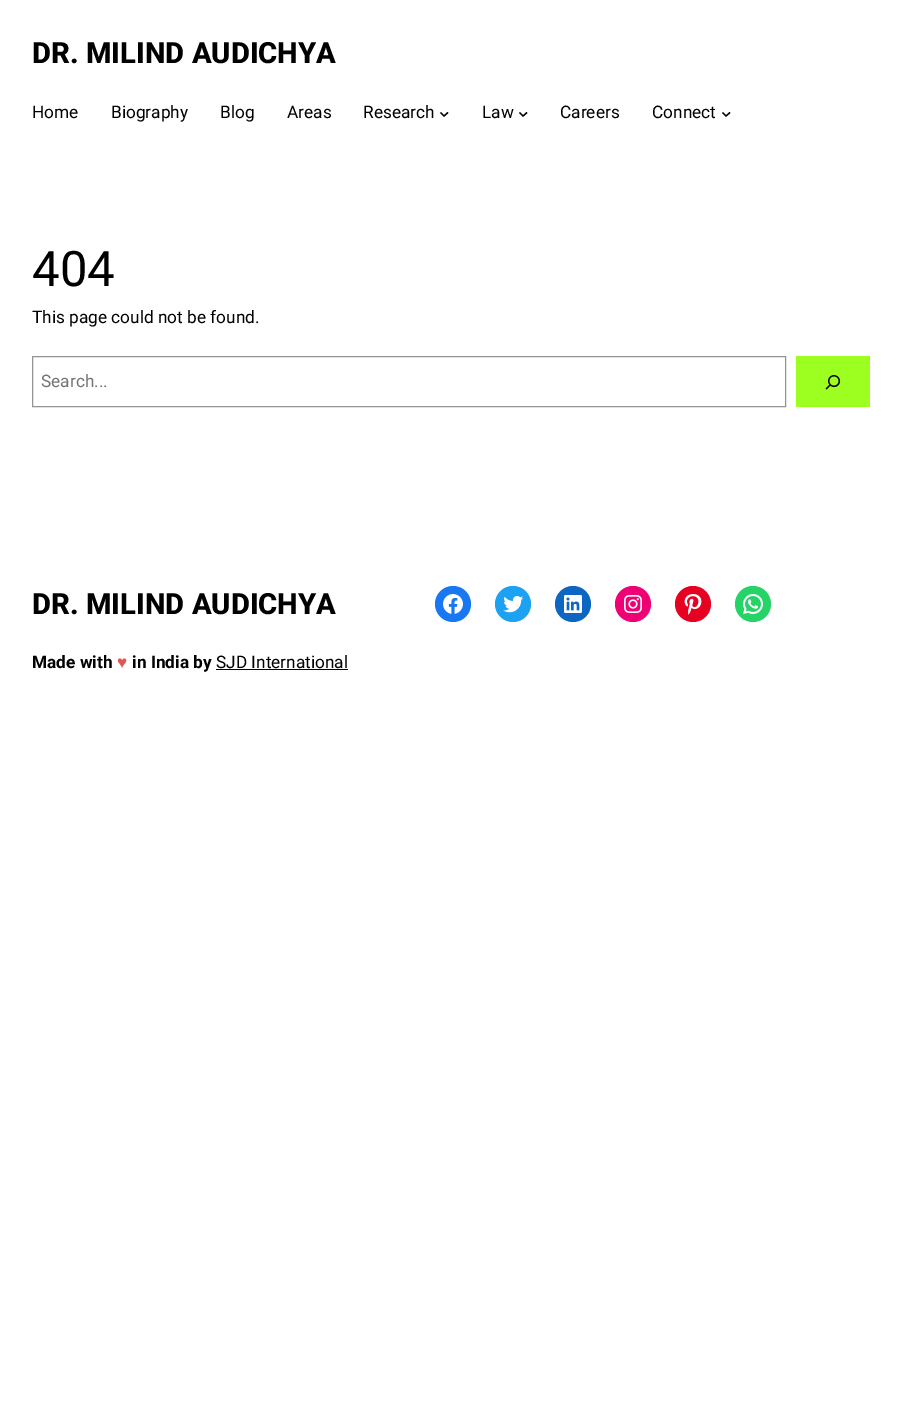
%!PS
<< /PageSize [902 1421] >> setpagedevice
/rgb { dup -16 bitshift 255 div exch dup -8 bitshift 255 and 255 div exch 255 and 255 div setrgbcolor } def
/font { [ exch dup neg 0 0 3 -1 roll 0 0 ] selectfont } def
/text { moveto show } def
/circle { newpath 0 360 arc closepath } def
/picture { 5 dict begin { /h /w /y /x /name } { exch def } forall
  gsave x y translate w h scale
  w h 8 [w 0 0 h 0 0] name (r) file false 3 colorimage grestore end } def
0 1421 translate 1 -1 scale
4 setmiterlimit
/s1 { /Roboto-ExtraBold 29.25 font 16#000000 rgb } def
/s2 { /Roboto-Regular 17.25 font 16#000000 rgb } def
/s3 { /Roboto-Regular 49 font 16#000000 rgb } def
/s4 { /Roboto-Regular 17.25 font 16#757575 rgb } def
/s5 { /Roboto-Bold 17.25 font 16#000000 rgb } def
/s6 { /LiberationSans-Bold 17.25 font 16#E25555 rgb } def
16#FFFFFF rgb
0 0 902 1421 rectfill
s1
(DR. MILIND AUDICHYA) 32 63 text
s2
(Home) 32 118 text
(Biography) 111 118 text
(Blog) 220 118 text
(Areas) 287 118 text
(Research) 363 118 text
1.3 setlinewidth
440.5 112.5 moveto 444 116 lineto 448 112.5 lineto stroke
(Law) 482 118 text
519.5 112.5 moveto 523 116 lineto 527 112.5 lineto stroke
(Careers) 560 118 text
(Connect) 652 118 text
722.5 112.5 moveto 726 116 lineto 730 112.5 lineto stroke
s3
(404) 32 286 text
s2
(This page could not be found.) 32 323 text
16#949494 rgb
1 setlinewidth
32.5 356.5 753 50 rectstroke
s4
(Search...) 41 387 text
16#9DFF20 rgb
796 356 74 51 rectfill
(pic1.raw) 825 375 16 15 picture
s1
(DR. MILIND AUDICHYA) 32 614 text
16#1778F2 rgb
453 604 18 circle fill
(pic2.raw) 443 594 20 20 picture
16#1DA1F2 rgb
513 604 18 circle fill
(pic3.raw) 503 596 20 17 picture
16#0D66C2 rgb
573 604 18 circle fill
(pic4.raw) 564 595 18 18 picture
16#F00075 rgb
633 604 18 circle fill
(pic5.raw) 624 595 18 18 picture
16#E60122 rgb
693 604 18 circle fill
(pic6.raw) 684 594 18 21 picture
16#25D366 rgb
753 604 18 circle fill
(pic7.raw) 743 594 20 20 picture
s5
(Made with) 32 668 text
s6
(♥) 117 668 text
s5
(in India by) 132 668 text
s2
(SJD International) 216 668 text
216 669 132 1 rectfill
showpage
